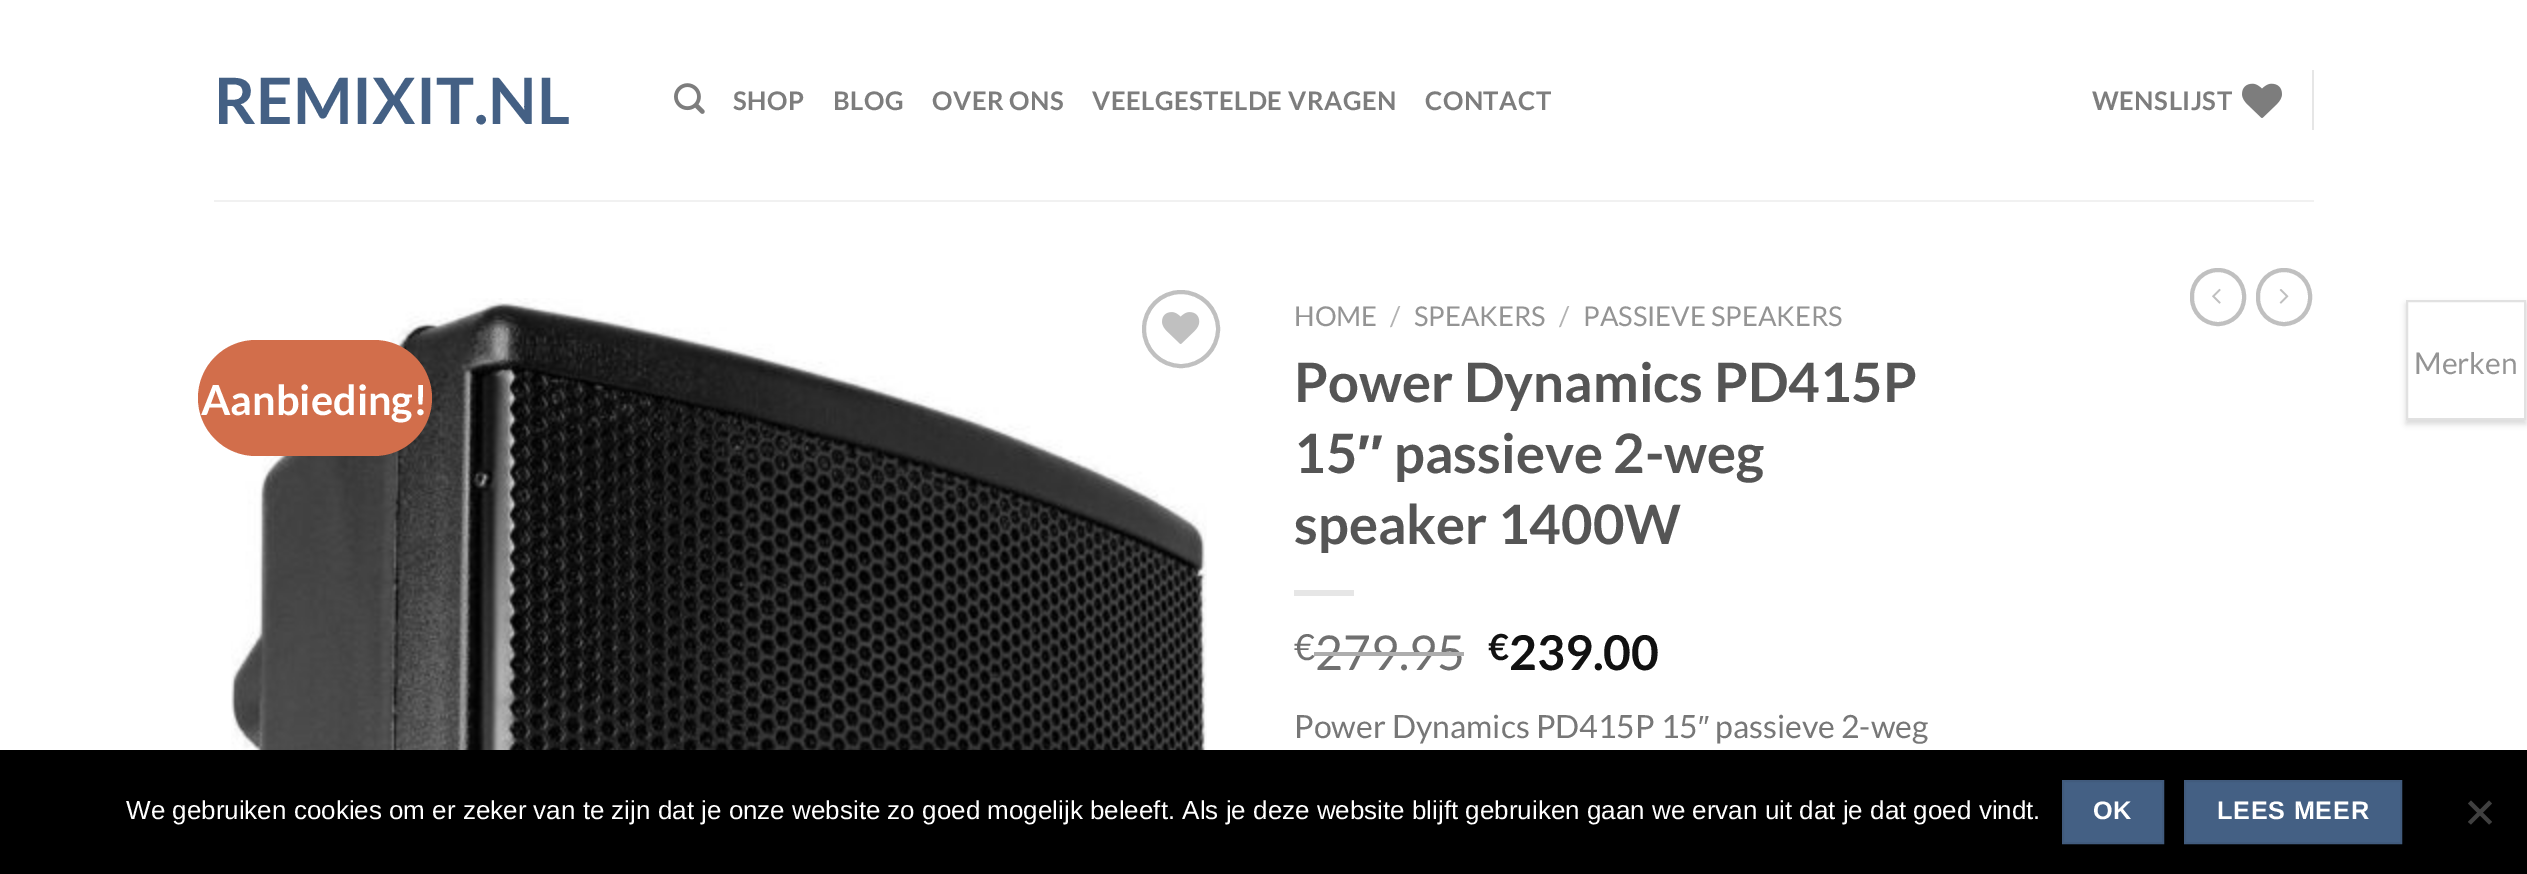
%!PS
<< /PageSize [2527 874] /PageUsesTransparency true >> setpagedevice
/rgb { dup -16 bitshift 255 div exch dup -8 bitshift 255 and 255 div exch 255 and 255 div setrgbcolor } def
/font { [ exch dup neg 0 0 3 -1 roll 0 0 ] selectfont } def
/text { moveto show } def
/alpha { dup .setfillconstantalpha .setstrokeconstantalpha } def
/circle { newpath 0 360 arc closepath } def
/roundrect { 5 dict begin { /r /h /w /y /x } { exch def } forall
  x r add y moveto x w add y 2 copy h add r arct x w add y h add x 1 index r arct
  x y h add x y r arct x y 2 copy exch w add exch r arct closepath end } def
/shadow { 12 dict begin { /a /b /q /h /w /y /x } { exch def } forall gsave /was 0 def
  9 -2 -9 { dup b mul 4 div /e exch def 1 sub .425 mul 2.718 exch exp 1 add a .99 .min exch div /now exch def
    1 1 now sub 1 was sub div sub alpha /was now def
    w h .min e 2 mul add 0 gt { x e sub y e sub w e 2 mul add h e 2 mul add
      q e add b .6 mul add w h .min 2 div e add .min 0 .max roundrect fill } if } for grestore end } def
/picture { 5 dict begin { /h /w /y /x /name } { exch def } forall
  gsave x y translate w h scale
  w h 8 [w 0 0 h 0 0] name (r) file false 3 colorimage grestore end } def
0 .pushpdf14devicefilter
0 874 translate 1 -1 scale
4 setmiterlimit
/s1 { /Lato-Bold 64 font 16#446084 rgb } def
/s2 { /Lato-Bold 41.5 font 16#FFFFFF rgb } def
/s3 { /Lato-Regular 27.25 font 16#949494 rgb } def
/s4 { /Lato-Regular 27.25 font 16#B2B2B2 rgb } def
/s5 { /Lato-Bold 54.4 font 16#555555 rgb } def
/s6 { /LiberationSans-Bold 54.4 font 16#555555 rgb } def
/s7 { /Lato-Regular 36 font 16#707070 rgb } def
/s8 { /Lato-Regular 48 font 16#707070 rgb } def
/s9 { /Lato-Bold 36 font 16#111111 rgb } def
/s10 { /Lato-Bold 48 font 16#111111 rgb } def
/s11 { /Lato-Regular 32 font 16#777777 rgb } def
/s12 { /LiberationSans-Regular 32 font 16#777777 rgb } def
/s13 { /Lato-Regular 30 font 16#949494 rgb } def
/s14 { /LiberationSans-Regular 26 font 16#FFFFFF rgb } def
16#FFFFFF rgb
0 0 2527 874 rectfill
s1
(REMIXIT.NL) 214 124 text
(pic1.raw) 674 83 31 31 picture
/Lato-Bold 25.6 font
16#7D7D7D rgb
733 110 moveto 0.5 0 (SHOP) ashow
833 110 moveto 0.5 0 (BLOG) ashow
932 110 moveto 0.5 0 (OVER ONS) ashow
1092 110 moveto 0.5 0 (VEELGESTELDE VRAGEN) ashow
1425 110 moveto 0.5 0 (CONTACT) ashow
2092 110 moveto 0.5 0 (WENSLIJST) ashow
(pic2.raw) 2242 83 40 35 picture
16#E6E6E6 rgb
2312 70 2 60 rectfill
16#F1F1F1 rgb
214 200 2100 2 rectfill
16#C0C0C0 rgb
4 setlinewidth
2192 270 52 54 26 roundrect stroke
(pic3.raw) 2212 288 9 16 picture
2258 270 52 54 26 roundrect stroke
(pic4.raw) 2279 289 10 15 picture
(pic6.raw) 231 298 976 452 picture
1181 329 37 circle stroke
(pic5.raw) 1162 312 38 32 picture
16#D26E4B rgb
198 340 234 116 58 roundrect fill
s2
(Aanbieding!) 201 415 text
s3
(HOME) 1294 326 text
s4
(/) 1390 326 text
s3
(SPEAKERS) 1414 326 text
s4
(/) 1559 326 text
s3
(PASSIEVE SPEAKERS) 1583 326 text
s5
(Power Dynamics PD415P) 1294 402 text
(15) 1294 473 text
s6
(″) 1357 473 text
s5
(passieve 2-weg) 1394 473 text
(speaker 1400W) 1294 544 text
16#E6E6E6 rgb
1294 590 60 6 rectfill
s7
(€) 1294 660 text
s8
(279.95) 1315 670 text
16#ADADAD rgb
1314 652 150 4 rectfill
s9
(€) 1488 660 text
s10
(239.00) 1509 670 text
s11
(Power Dynamics PD415P 15) 1294 738 text
s12
(″) 1698 738 text
s11
(passieve 2-weg) 1715 738 text
gsave
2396 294 moveto 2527 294 lineto 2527 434 lineto 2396 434 lineto closepath 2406 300 moveto 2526 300 lineto 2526 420 lineto 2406 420 lineto closepath eoclip newpath
16#000000 rgb
2406 304 120 120 0 3 0.15 shadow
grestore
16#E1E1E1 rgb
2 setlinewidth
2407 301 118 118 rectstroke
s13
(Merken) 2414 374 text
16#000000 rgb
0 750 2527 124 rectfill
s14
(We gebruiken cookies om er zeker van te zijn dat je onze website zo goed mogelijk beleeft. Als je deze website blijft gebruiken gaan we ervan uit dat je dat goed vindt.) 126 819 text
16#446084 rgb
2063 781 moveto 2163 781 lineto 2163 843 lineto 2063 843 lineto closepath gsave fill grestore
16#415B7D rgb
stroke
/LiberationSans-Bold 25.25 font
16#FFFFFF rgb
2093 819 moveto 0.75 0 (OK) ashow
16#446084 rgb
2185 781 moveto 2401 781 lineto 2401 843 lineto 2185 843 lineto closepath gsave fill grestore
16#415B7D rgb
stroke
16#FFFFFF rgb
2217 819 moveto 0.75 0 (LEES MEER) ashow
16#404040 rgb
2489 800.5 moveto 2492 803.5 lineto 2471 824.5 lineto 2468 822 lineto closepath fill
2468 803.5 moveto 2471 800.5 lineto 2492 822 lineto 2489 824.5 lineto closepath fill
.poppdf14devicefilter showpage
